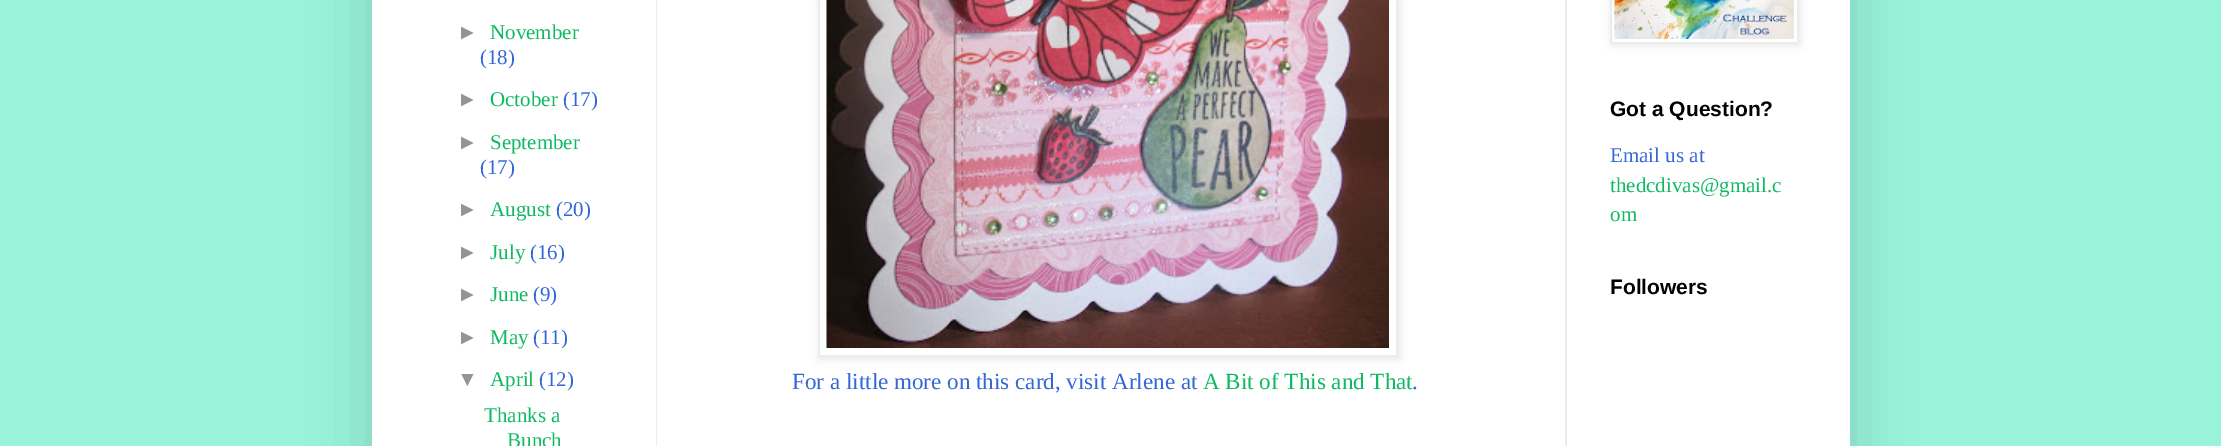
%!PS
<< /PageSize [2221 446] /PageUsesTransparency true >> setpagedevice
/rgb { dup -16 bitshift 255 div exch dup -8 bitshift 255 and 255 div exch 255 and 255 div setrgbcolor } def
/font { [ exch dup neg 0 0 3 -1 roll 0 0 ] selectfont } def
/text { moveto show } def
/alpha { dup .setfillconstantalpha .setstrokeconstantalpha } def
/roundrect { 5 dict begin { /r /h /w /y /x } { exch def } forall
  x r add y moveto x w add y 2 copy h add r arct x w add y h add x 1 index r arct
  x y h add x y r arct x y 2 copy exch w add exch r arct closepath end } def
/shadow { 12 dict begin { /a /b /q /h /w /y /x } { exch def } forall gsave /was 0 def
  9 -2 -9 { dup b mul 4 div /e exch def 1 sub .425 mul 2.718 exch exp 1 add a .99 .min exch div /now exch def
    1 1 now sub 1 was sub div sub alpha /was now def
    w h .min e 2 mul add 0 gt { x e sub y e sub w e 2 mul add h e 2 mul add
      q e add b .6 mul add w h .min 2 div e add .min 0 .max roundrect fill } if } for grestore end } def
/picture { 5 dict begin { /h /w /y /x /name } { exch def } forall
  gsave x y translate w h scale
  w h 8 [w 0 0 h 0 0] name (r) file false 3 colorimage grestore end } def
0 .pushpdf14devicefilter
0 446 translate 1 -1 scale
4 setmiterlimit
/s1 { /LiberationSans-Regular 21 font 16#949494 rgb } def
/s2 { /LiberationSerif-Regular 21 font 16#0FB961 rgb } def
/s3 { /LiberationSerif-Regular 21 font 16#3367D6 rgb } def
/s4 { /LiberationSans-Bold 21 font 16#000000 rgb } def
/s5 { /LiberationSerif-Regular 23.1 font 16#3367D6 rgb } def
/s6 { /LiberationSerif-Regular 23.1 font 16#0FB961 rgb } def
16#99F2DA rgb
0 0 2221 446 rectfill
16#000000 rgb
372 -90 1478 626 0 30 0.15 shadow
16#FFFFFF rgb
372 0 1478 446 rectfill
16#ECECEC rgb
656 0 1 446 rectfill
1565 0 2 446 rectfill
s1
(►) 457 39 text
s2
(November) 490 39 text
s3
(\(18\)) 480 64 text
s1
(►) 457 106 text
s2
(October) 490 106 text
s3
(\(17\)) 563 106 text
s1
(►) 457 149 text
s2
(September) 490 149 text
s3
(\(17\)) 480 174 text
s1
(►) 457 216 text
s2
(August) 490 216 text
s3
(\(20\)) 556 216 text
s1
(►) 457 259 text
s2
(July) 490 259 text
s3
(\(16\)) 530 259 text
s1
(►) 457 301 text
s2
(June) 490 301 text
s3
(\(9\)) 533 301 text
s1
(►) 457 344 text
s2
(May) 490 344 text
s3
(\(11\)) 533 344 text
s1
(▼) 457 386 text
s2
(April) 490 386 text
s3
(\(12\)) 539 386 text
s2
(Thanks a) 484 422 text
(Bunch) 507 447 text
16#000000 rgb
1611 -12 189 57 0 4 0.1 shadow
16#FFFFFF rgb
1611 -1 moveto 1798 -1 lineto 1798 43 lineto 1611 43 lineto closepath gsave fill grestore
16#ECECEC rgb
2 setlinewidth
stroke
(pic1.raw) 1614 0 180 39 picture
s4
(Got a Question?) 1610 116 text
s3
(Email us at) 1610 162 text
s2
(thedcdivas@gmail.c) 1610 192 text
(om) 1610 221 text
s4
(Followers) 1610 294 text
gsave
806 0 moveto 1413 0 lineto 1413 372 lineto 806 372 lineto closepath 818 -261 moveto 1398 -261 lineto 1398 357 lineto 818 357 lineto closepath eoclip newpath
819 -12 581 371 0 4 0.1 shadow
grestore
16#ECECEC rgb
819 -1 578 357 rectstroke
(pic2.raw) 826 0 563 348 picture
s5
(For a little more on this card, visit Arlene at) 792 389 text
s6
(A Bit of This and That) 1203 389 text
s5
(.) 1412 389 text
.poppdf14devicefilter showpage
